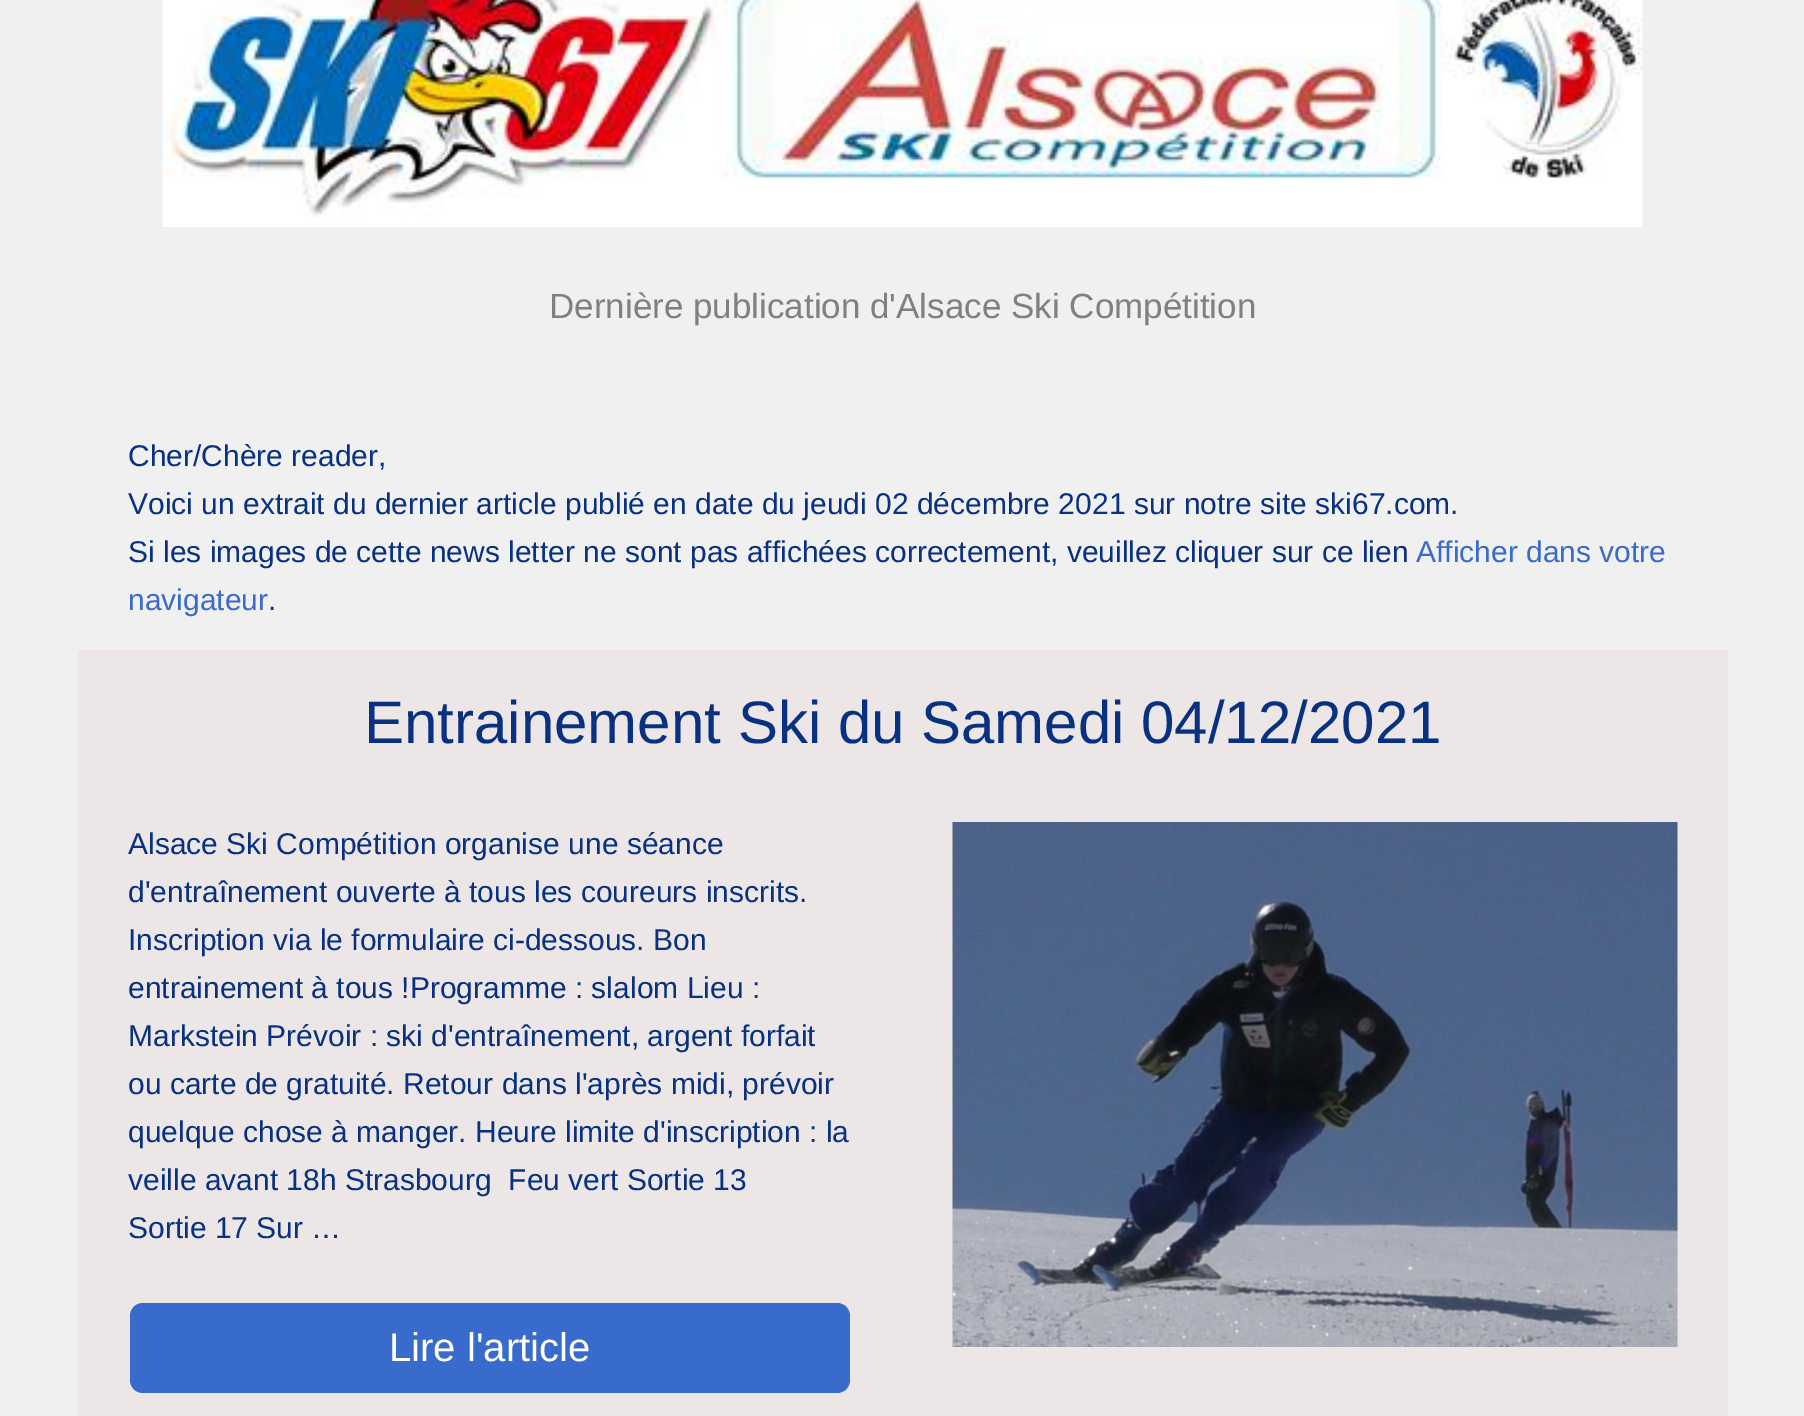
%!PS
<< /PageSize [1804 1416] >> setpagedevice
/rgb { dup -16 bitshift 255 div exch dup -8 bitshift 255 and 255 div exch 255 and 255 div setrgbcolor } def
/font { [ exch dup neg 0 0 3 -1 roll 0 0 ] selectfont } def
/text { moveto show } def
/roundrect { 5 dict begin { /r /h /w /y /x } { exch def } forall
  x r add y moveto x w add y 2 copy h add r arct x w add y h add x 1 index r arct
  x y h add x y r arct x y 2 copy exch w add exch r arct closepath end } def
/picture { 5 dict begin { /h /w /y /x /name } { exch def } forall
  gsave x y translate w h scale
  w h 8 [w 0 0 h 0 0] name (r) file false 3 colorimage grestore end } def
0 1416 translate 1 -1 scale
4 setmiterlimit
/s1 { /LiberationSans-Regular 35 font 16#808080 rgb } def
/s2 { /LiberationSans-Regular 30 font 16#083181 rgb } def
/s3 { /LiberationSans-Regular 30 font 16#396BCD rgb } def
/s4 { /LiberationSans-Regular 60 font 16#083181 rgb } def
/s5 { /LiberationSans-Regular 40 font 16#FFFFFF rgb } def
16#F0F0F0 rgb
0 0 1804 1416 rectfill
16#ECE6E6 rgb
78 650 1650 766 rectfill
(pic1.raw) 162 0 1481 227 picture
s1
(Dernière publication d'Alsace Ski Compétition) 549 318 text
s2
(Cher/Chère reader,) 128 466 text
(Voici un extrait du dernier article publié en date du jeudi 02 décembre 2021 sur notre site ski67.com.) 128 514 text
(Si les images de cette news letter ne sont pas affichées correctement, veuillez cliquer sur ce lien) 128 562 text
s3
(Afficher dans votre) 1416 562 text
(navigateur) 128 610 text
s2
(.) 268 610 text
s4
(Entrainement Ski du Samedi 04/12/2021) 364 743 text
s2
(Alsace Ski Compétition organise une séance) 128 854 text
(d'entraînement ouverte à tous les coureurs inscrits.) 128 902 text
(Inscription via le formulaire ci-dessous. Bon) 128 950 text
(entrainement à tous !Programme : slalom Lieu :) 128 998 text
(Markstein Prévoir : ski d'entraînement, argent forfait) 128 1046 text
(ou carte de gratuité. Retour dans l'après midi, prévoir) 128 1094 text
(quelque chose à manger. Heure limite d'inscription : la) 128 1142 text
(veille avant 18h Strasbourg  Feu vert Sortie 13) 128 1190 text
(Sortie 17 Sur …) 128 1238 text
16#396BCD rgb
130 1303 720 90 13 roundrect fill
s5
(Lire l'article) 389 1361 text
(pic2.raw) 952 822 726 525 picture
showpage
